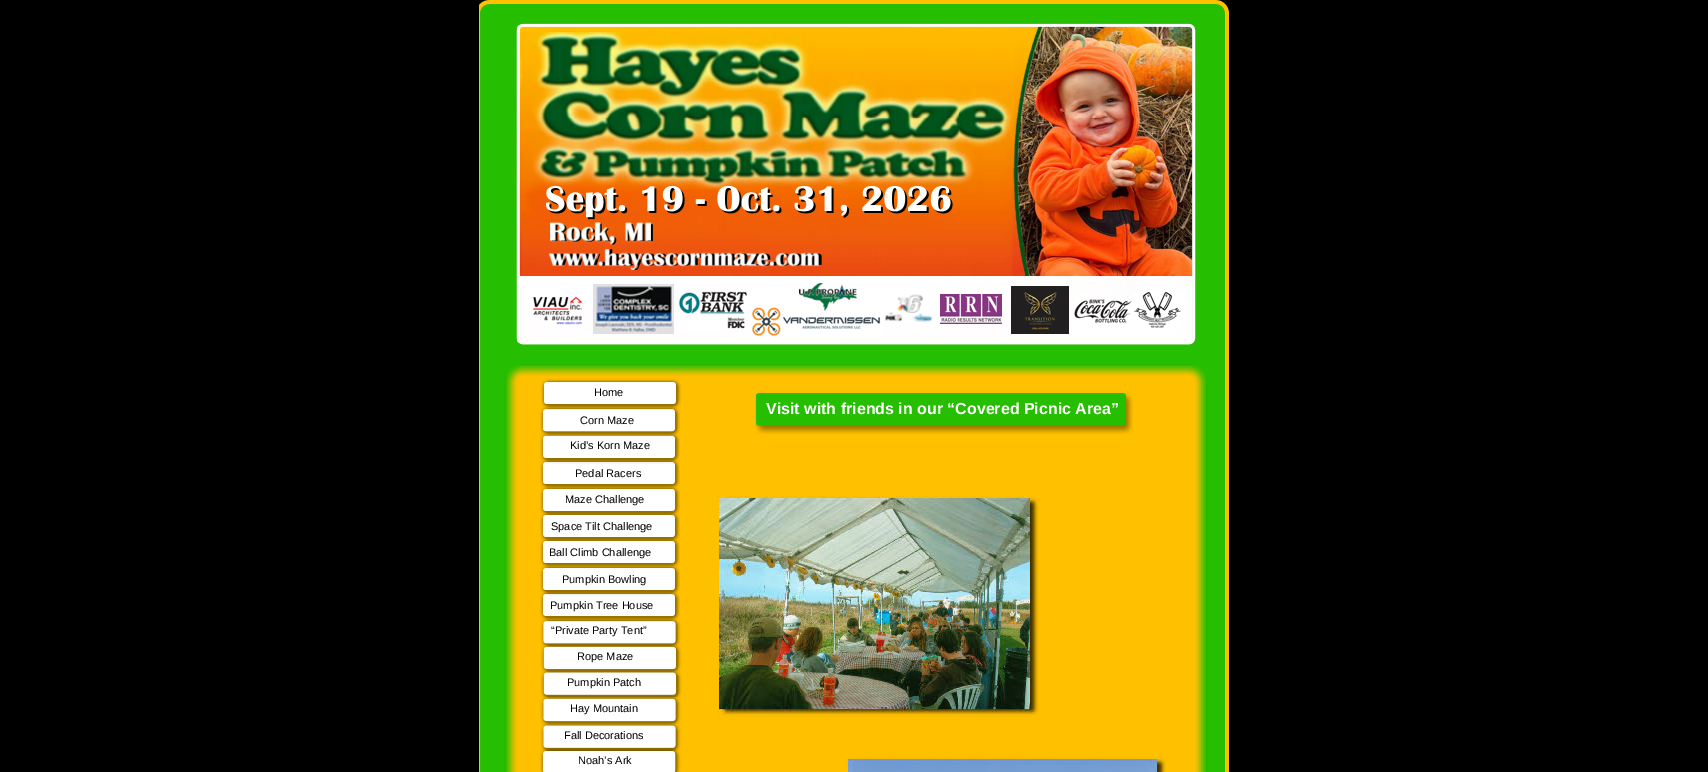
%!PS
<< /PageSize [1708 772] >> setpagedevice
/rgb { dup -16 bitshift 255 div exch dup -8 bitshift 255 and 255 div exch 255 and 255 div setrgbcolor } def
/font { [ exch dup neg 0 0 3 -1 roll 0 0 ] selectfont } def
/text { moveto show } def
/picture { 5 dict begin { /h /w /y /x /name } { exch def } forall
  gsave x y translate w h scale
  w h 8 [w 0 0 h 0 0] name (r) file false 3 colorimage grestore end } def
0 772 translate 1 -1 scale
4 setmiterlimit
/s1 { /LiberationSans-Regular 11 font 16#000000 rgb } def
/s2 { /LiberationSans-Bold 16 font 16#FFFFFF rgb } def
16#000000 rgb
0 0 1708 772 rectfill
(pic1.raw) 479 0 750 772 picture
(pic2.raw) 516 23 680 322 picture
(pic6.raw) 540 459 140 31 picture
(pic5.raw) 540 406 140 58 picture
(pic3.raw) 541 379 140 31 picture
s1
(Home) 594 396 text
(pic4.raw) 755 393 378 41 picture
s2
(Visit with friends in our “Covered Picnic Area”) 766 414 text
s1
(Corn Maze) 580 424 text
(Kid’s Korn Maze) 570 449 text
(Pedal Racers) 575 477 text
(pic7.raw) 540 486 140 30 picture
(Maze Challenge) 565 503 text
(pic8.raw) 718 496 321 221 picture
(pic9.raw) 540 512 140 30 picture
(Space Tilt Challenge) 551 530 text
(pic10.raw) 540 538 140 31 picture
(Ball Climb Challenge) 549 556 text
(pic13.raw) 540 617 142 155 picture
(pic12.raw) 540 591 140 31 picture
(pic11.raw) 540 565 140 31 picture
(Pumpkin Bowling) 562 583 text
(Pumpkin Tree House) 550 609 text
(“Private Party Tent”) 551 634 text
(Rope Maze) 577 660 text
(Pumpkin Patch) 567 686 text
(Hay Mountain) 570 712 text
(Fall Decorations) 564 739 text
(Noah’s Ark) 578 764 text
(pic14.raw) 847 757 319 15 picture
showpage
